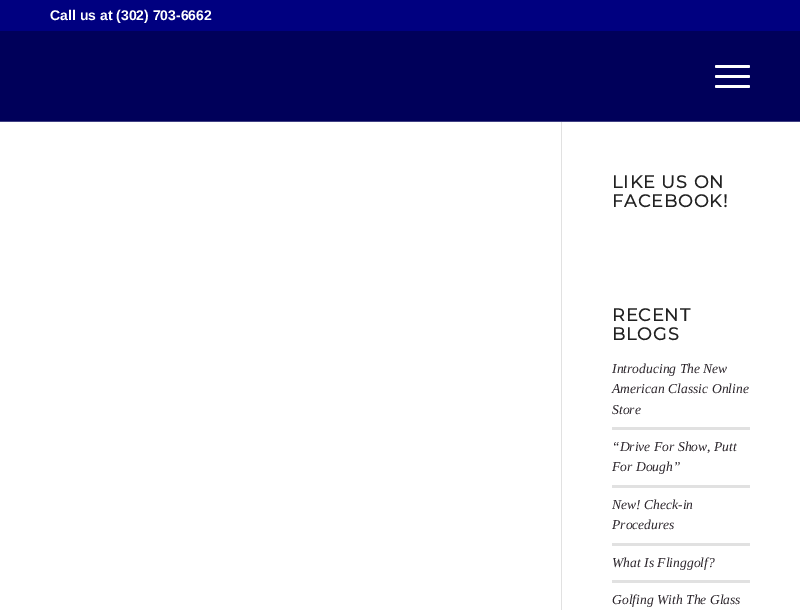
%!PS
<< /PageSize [800 610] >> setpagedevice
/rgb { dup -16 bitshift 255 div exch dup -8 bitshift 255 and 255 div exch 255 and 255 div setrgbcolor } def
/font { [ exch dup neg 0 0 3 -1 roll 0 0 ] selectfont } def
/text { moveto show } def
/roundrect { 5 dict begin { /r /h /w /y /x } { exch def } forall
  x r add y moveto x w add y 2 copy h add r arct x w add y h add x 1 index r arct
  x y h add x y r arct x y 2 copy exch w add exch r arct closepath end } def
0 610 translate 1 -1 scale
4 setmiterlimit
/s1 { /LiberationSans-Bold 14 font 16#FFFFFF rgb } def
/s2 { /LiberationSerif-Italic 13.6 font 16#2B252B rgb } def
16#FFFFFF rgb
0 0 800 610 rectfill
16#000080 rgb
0 0 800 31 rectfill
s1
(Call us at \(302\) 703-6662) 50 20 text
16#00005A rgb
0 31 800 90 rectfill
16#404083 rgb
0 121 800 1 rectfill
16#FFFFFF rgb
715 75 35 3 1.5 roundrect fill
715 65 35 3 1.5 roundrect fill
715 85 35 3 1.5 roundrect fill
16#E1E1E1 rgb
561 122 1 488 rectfill
/Montserrat-Bold 17.5 font
16#222222 rgb
612 188 moveto 1 0 (LIKE US ON) ashow
612 207 moveto 1 0 (FACEBOOK!) ashow
612 321 moveto 1 0 (RECENT) ashow
612 340 moveto 1 0 (BLOGS) ashow
s2
(Introducing The New) 612 373 text
(American Classic Online) 612 393 text
(Store) 612 414 text
16#E1E1E1 rgb
612 427 138 3 rectfill
s2
(“Drive For Show, Putt) 612 451 text
(For Dough”) 612 471 text
16#E1E1E1 rgb
612 485 138 3 rectfill
s2
(New! Check-in) 612 509 text
(Procedures) 612 529 text
16#E1E1E1 rgb
612 543 138 3 rectfill
s2
(What Is Flinggolf?) 612 567 text
16#E1E1E1 rgb
612 580 138 3 rectfill
s2
(Golfing With The Glass) 612 604 text
showpage
